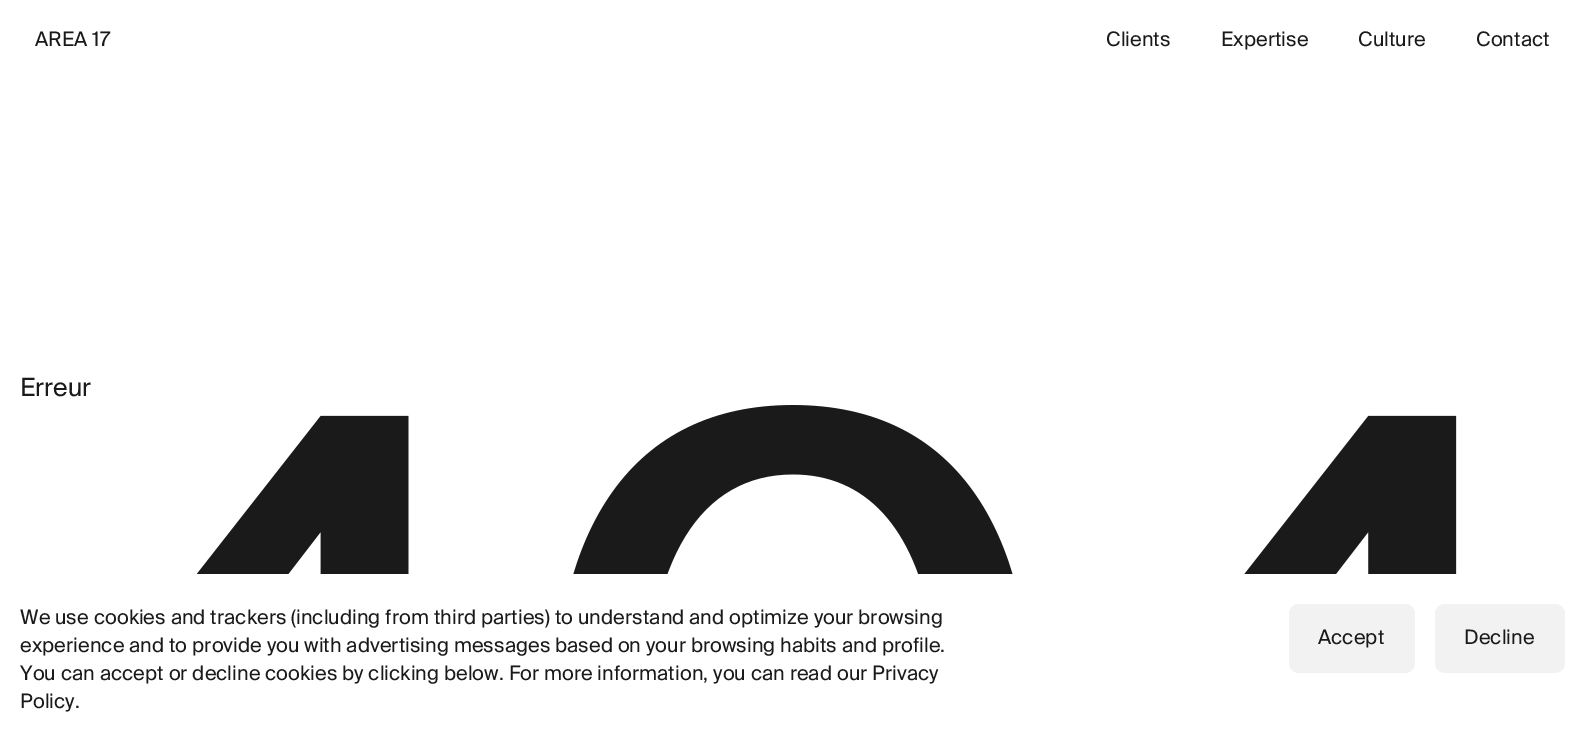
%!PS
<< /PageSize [1584 746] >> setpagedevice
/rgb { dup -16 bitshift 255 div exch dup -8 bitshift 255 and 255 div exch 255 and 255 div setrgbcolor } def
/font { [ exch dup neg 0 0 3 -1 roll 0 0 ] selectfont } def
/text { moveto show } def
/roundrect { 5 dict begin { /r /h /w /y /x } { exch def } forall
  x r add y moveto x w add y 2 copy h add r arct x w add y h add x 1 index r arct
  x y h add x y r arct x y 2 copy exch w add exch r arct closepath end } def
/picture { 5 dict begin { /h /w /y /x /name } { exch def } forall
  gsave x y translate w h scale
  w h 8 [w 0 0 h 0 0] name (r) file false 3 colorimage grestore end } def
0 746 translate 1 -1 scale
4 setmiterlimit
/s1 { /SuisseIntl-Regular 25 font 16#1A1A1A rgb } def
16#FFFFFF rgb
0 0 1584 746 rectfill
/SuisseIntl-Regular 20 font
16#1A1A1A rgb
35 46 moveto 0.08 0 (AREA 17) ashow
1106 46 moveto 0.08 0 (Clients) ashow
1221 46 moveto 0.08 0 (Expertise) ashow
1358 46 moveto 0.08 0 (Culture) ashow
1476 46 moveto 0.08 0 (Contact) ashow
s1
(Erreur) 20 396 text
(pic1.raw) 196 405 1261 169 picture
/SuisseIntl-Regular 20 font
20 624 moveto 0.08 0 (We use cookies and trackers \(including from third parties\) to understand and optimize your browsing) ashow
20 652 moveto 0.08 0 (experience and to provide you with advertising messages based on your browsing habits and profile.) ashow
20 680 moveto 0.08 0 (You can accept or decline cookies by clicking below. For more information, you can read our Privacy) ashow
20 708 moveto 0.08 0 (Policy.) ashow
16#F2F2F2 rgb
1289 604 126 69 10 roundrect fill
16#1A1A1A rgb
1318 644 moveto 0.08 0 (Accept) ashow
16#F2F2F2 rgb
1435 604 130 69 10 roundrect fill
16#1A1A1A rgb
1464 644 moveto 0.08 0 (Decline) ashow
showpage
